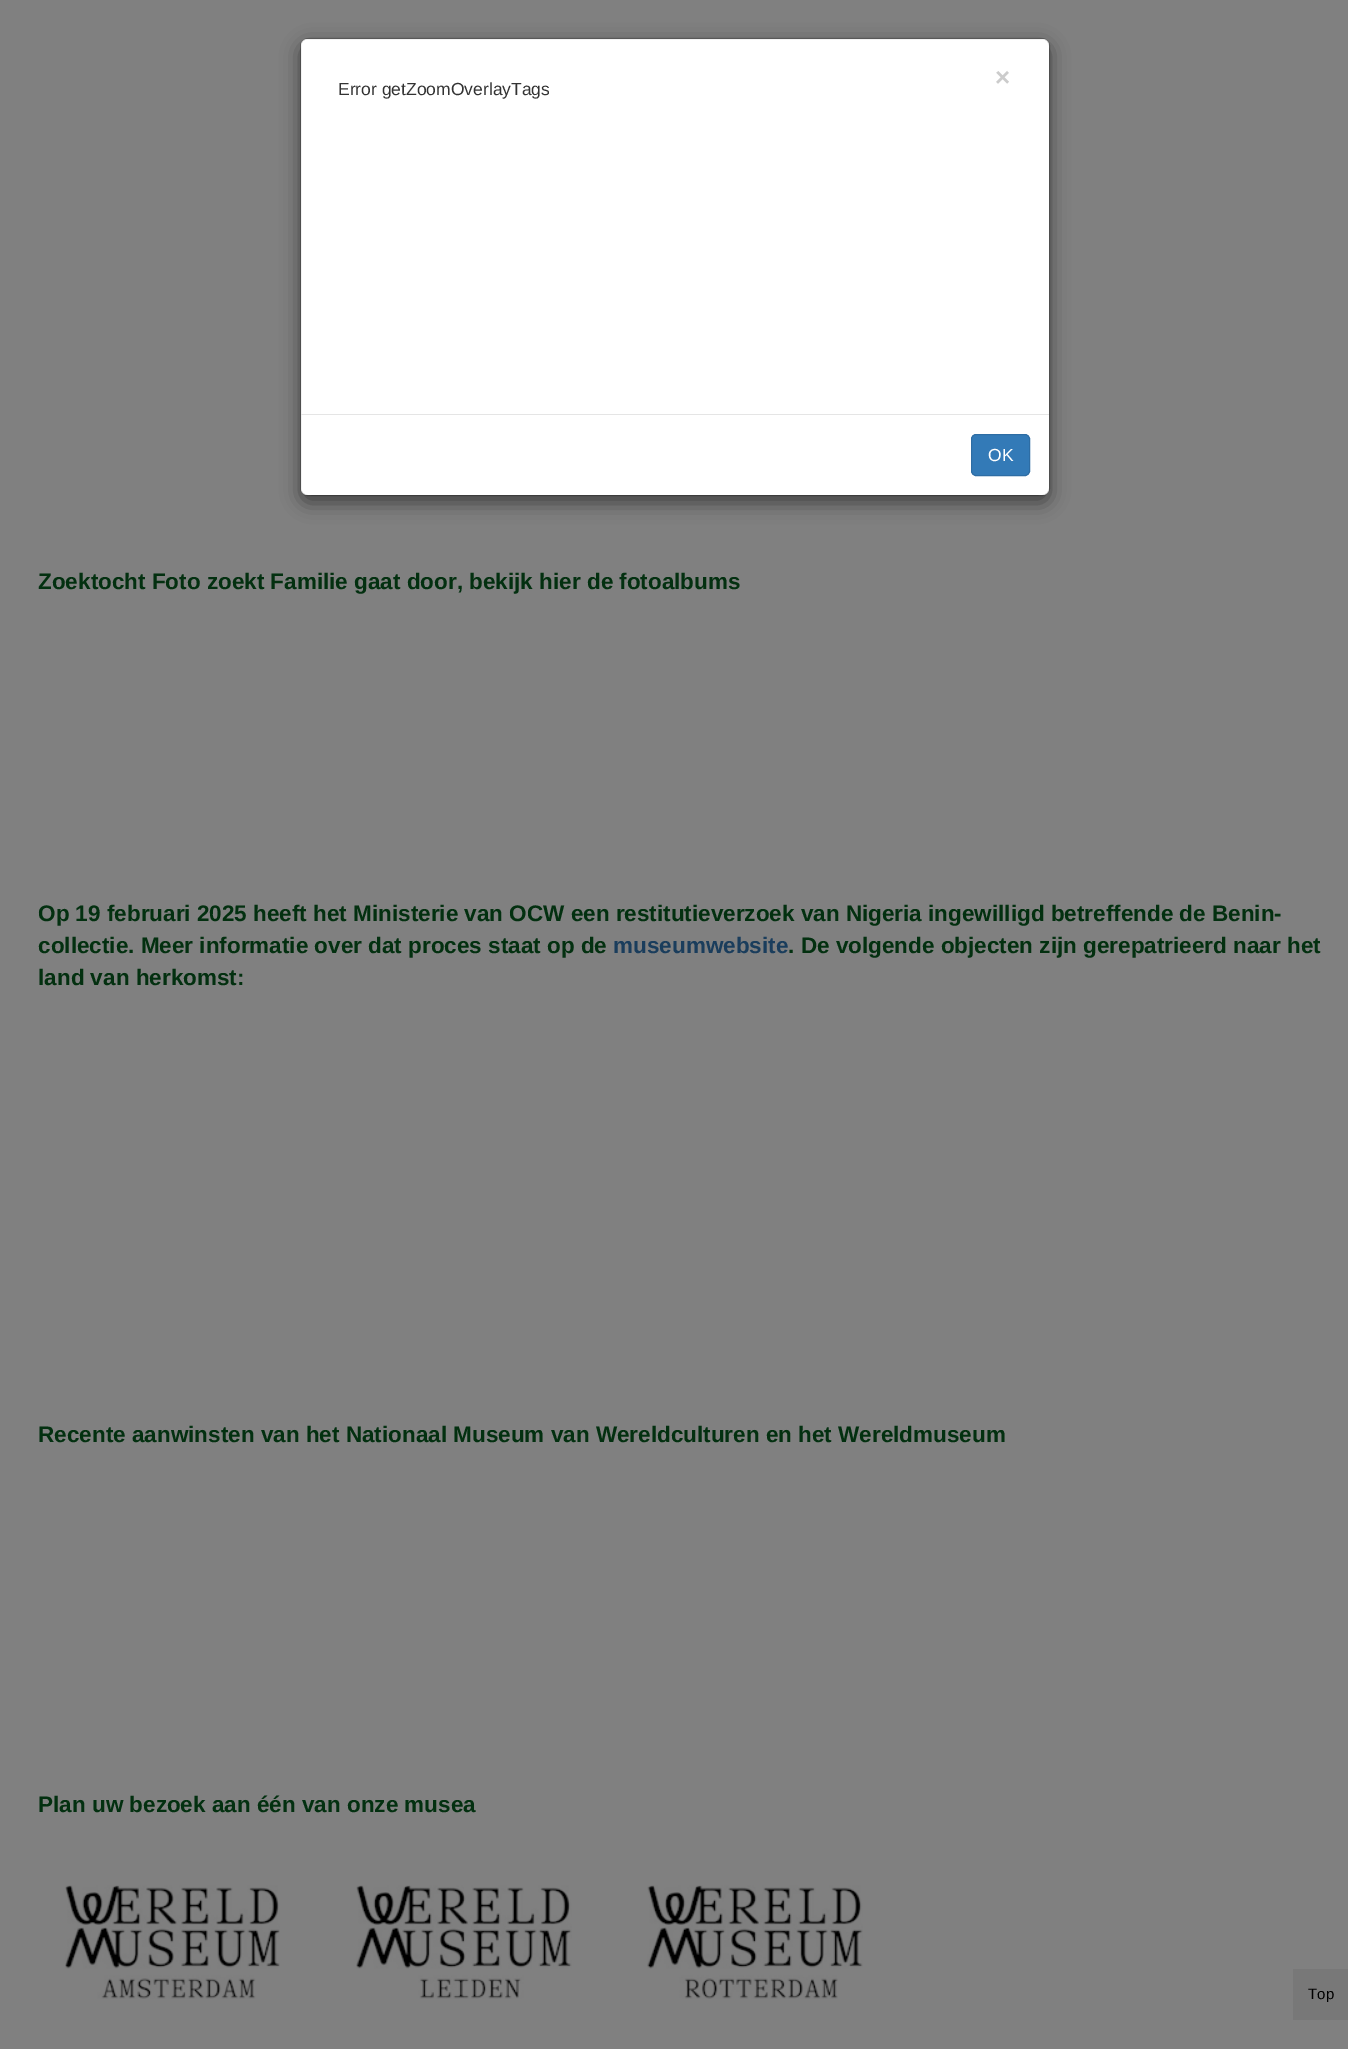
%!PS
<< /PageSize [1348 2049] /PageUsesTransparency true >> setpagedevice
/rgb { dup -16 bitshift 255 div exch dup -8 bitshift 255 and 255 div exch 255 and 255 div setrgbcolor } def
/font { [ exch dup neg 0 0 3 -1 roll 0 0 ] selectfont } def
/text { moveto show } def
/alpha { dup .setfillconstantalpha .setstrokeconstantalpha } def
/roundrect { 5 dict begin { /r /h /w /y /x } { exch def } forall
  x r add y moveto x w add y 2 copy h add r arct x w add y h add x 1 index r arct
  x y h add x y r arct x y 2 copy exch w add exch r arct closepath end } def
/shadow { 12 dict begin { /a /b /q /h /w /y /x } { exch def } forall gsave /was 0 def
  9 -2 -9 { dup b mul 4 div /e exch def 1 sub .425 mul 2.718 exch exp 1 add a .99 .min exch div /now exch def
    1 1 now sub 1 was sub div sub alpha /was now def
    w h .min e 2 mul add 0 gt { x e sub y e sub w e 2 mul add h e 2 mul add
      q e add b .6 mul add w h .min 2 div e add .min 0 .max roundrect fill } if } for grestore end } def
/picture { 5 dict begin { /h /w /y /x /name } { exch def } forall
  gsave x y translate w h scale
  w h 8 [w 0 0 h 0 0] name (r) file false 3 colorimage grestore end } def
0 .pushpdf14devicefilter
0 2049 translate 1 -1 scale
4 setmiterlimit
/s1 { /LiberationSans-Bold 26 font 16#CCCCCC rgb } def
/s2 { /LiberationSans-Regular 17.5 font 16#333333 rgb } def
/s3 { /LiberationSans-Regular 17.5 font 16#FFFFFF rgb } def
/s4 { /LiberationSans-Bold 22.5 font 16#033010 rgb } def
/s5 { /LiberationSans-Bold 22.5 font 16#1A3D5C rgb } def
/s6 { /LiberationSans-Regular 15 font 16#000000 rgb } def
16#808080 rgb
0 0 1348 2049 rectfill
16#000000 rgb
300 44 750 459 8 9.5 0.5 shadow
16#FFFFFF rgb
301 39 748 456 6 roundrect fill
0.2 alpha
16#000000 rgb
300.5 38.5 749 457 7.5 roundrect stroke
1 alpha
s1
(×) 995 86 text
s2
(Error getZoomOverlayTags) 338 95 text
16#E5E5E5 rgb
301 414 748 1 rectfill
16#337AB7 rgb
971.5 434.5 58 41 4.5 roundrect gsave fill grestore
16#2E6DA4 rgb
stroke
s3
(OK) 988 461 text
s4
(Zoektocht Foto zoekt Familie gaat door, bekijk hier de fotoalbums) 38 589 text
(Op 19 februari 2025 heeft het Ministerie van OCW een restitutieverzoek van Nigeria ingewilligd betreffende de Benin-) 38 921 text
(collectie. Meer informatie over dat proces staat op de) 38 953 text
s5
(museumwebsite) 613 953 text
s4
(. De volgende objecten zijn gerepatrieerd naar het) 788 953 text
(land van herkomst:) 38 985 text
(Recente aanwinsten van het Nationaal Museum van Wereldculturen en het Wereldmuseum) 38 1442 text
(Plan uw bezoek aan één van onze musea) 38 1812 text
(pic1.raw) 65 1885 215 114 picture
(pic2.raw) 356 1885 216 114 picture
(pic3.raw) 647 1885 216 114 picture
16#787878 rgb
1293 1969 55 51 rectfill
s6
(Top) 1308 1999 text
.poppdf14devicefilter showpage
